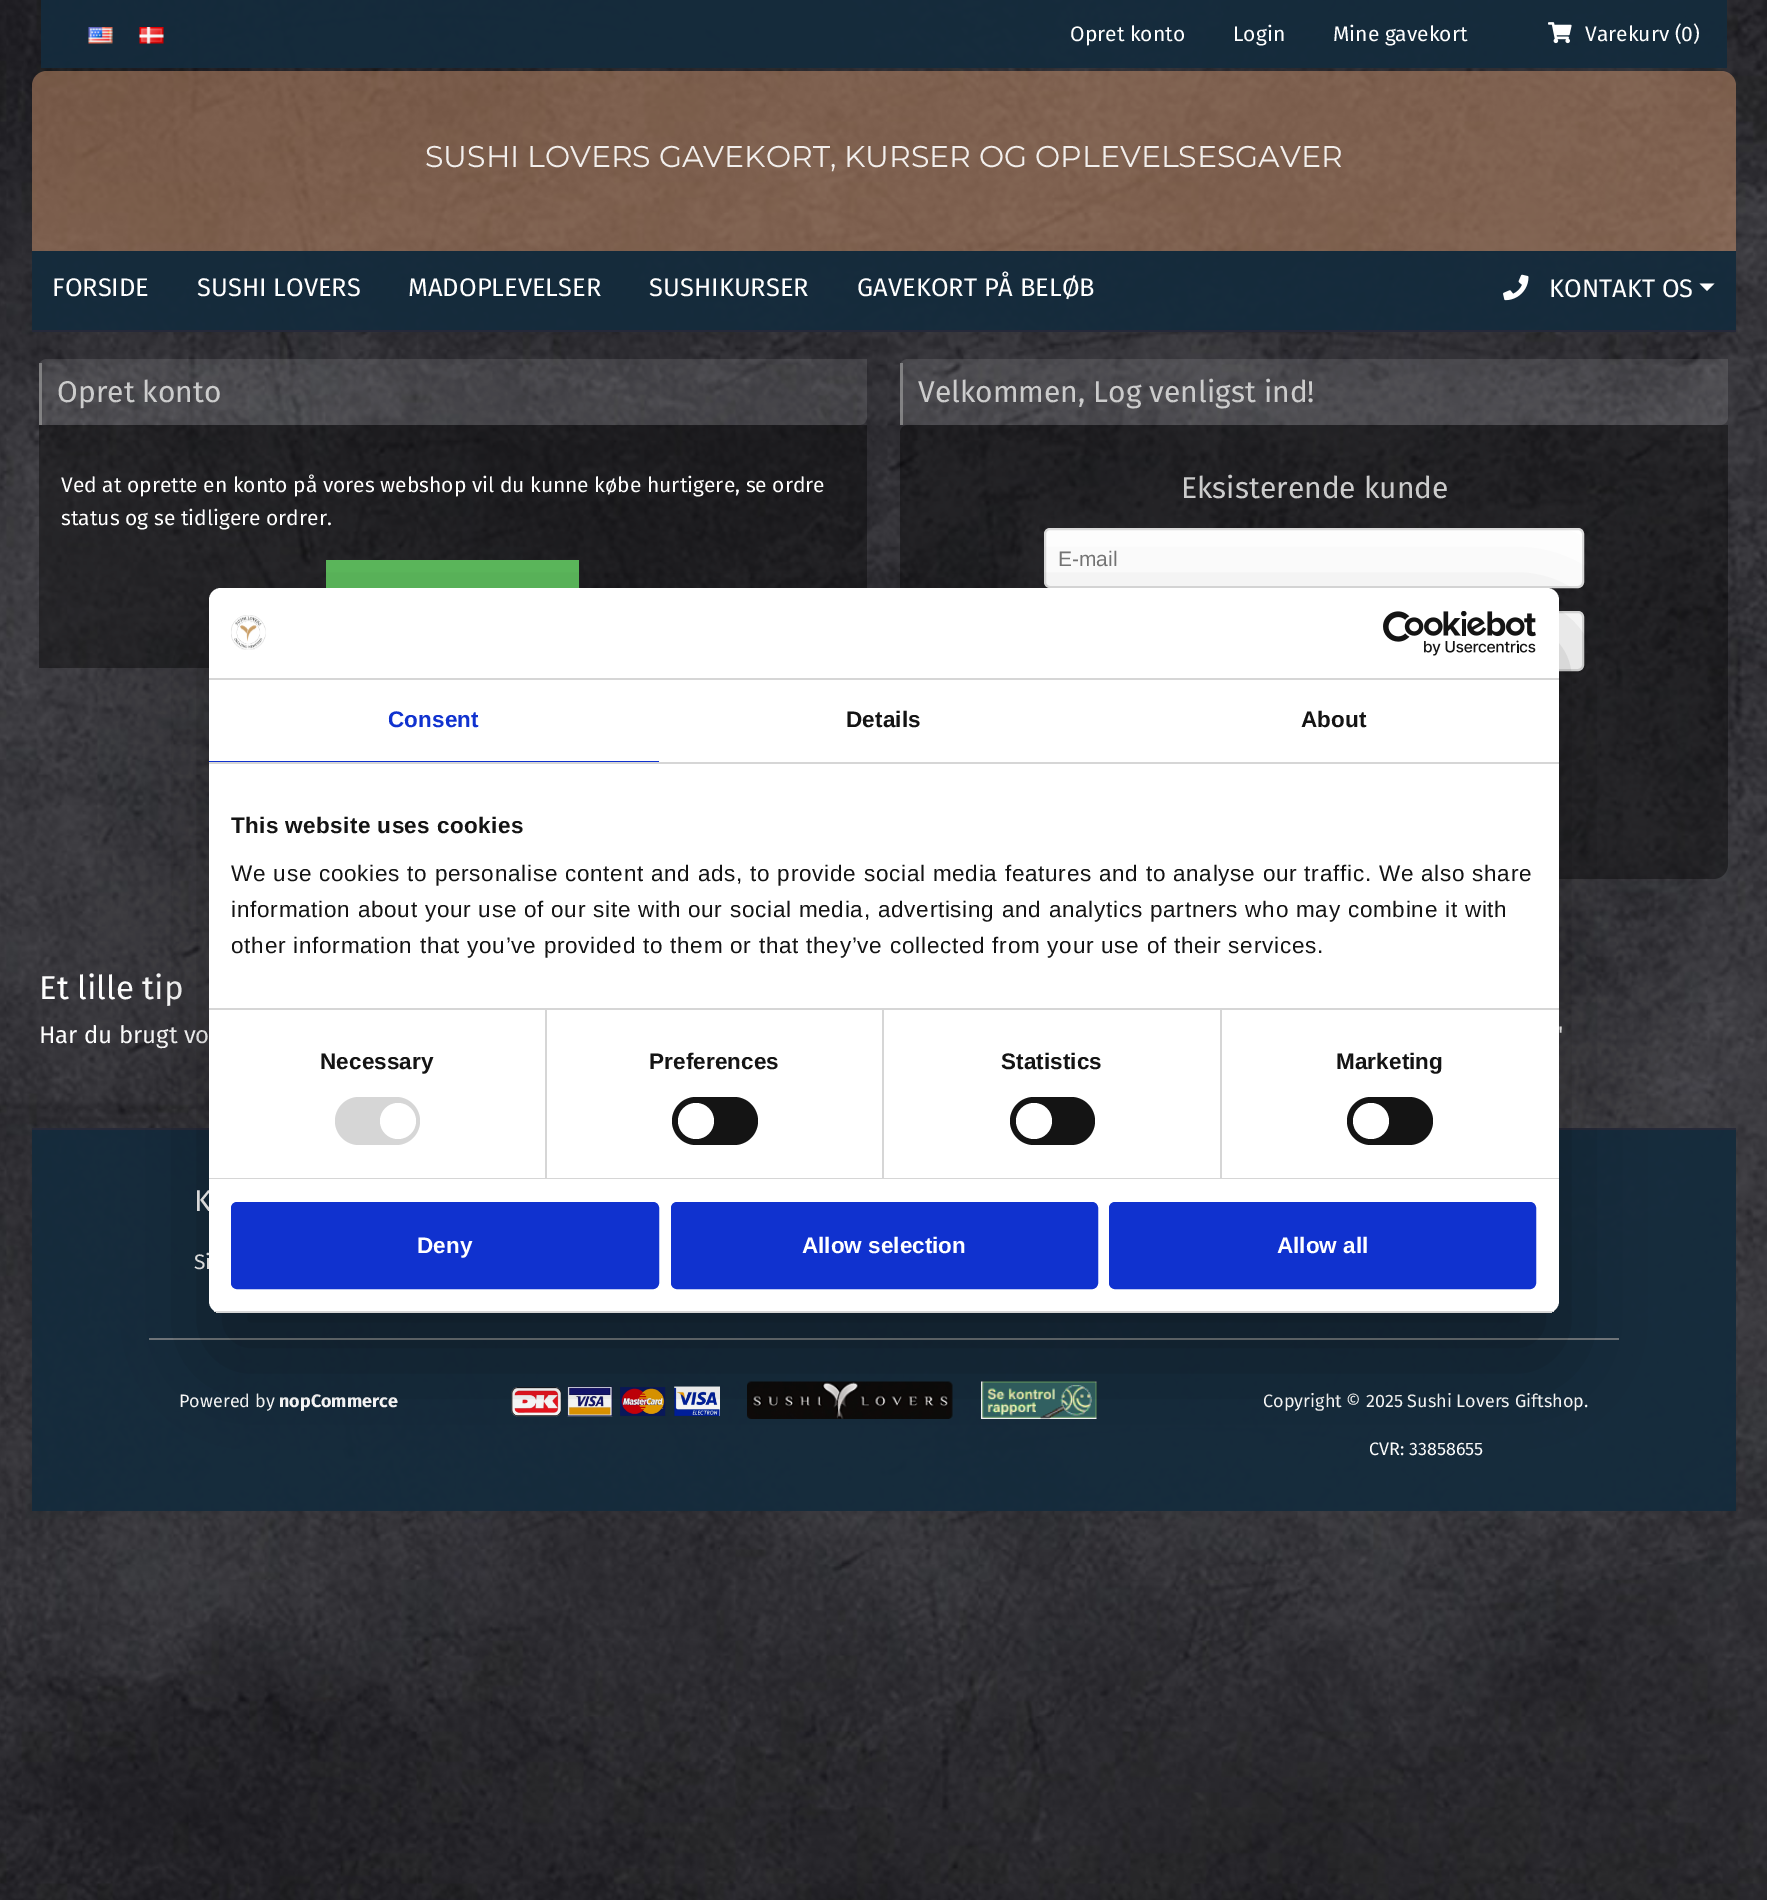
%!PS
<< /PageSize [1767 1900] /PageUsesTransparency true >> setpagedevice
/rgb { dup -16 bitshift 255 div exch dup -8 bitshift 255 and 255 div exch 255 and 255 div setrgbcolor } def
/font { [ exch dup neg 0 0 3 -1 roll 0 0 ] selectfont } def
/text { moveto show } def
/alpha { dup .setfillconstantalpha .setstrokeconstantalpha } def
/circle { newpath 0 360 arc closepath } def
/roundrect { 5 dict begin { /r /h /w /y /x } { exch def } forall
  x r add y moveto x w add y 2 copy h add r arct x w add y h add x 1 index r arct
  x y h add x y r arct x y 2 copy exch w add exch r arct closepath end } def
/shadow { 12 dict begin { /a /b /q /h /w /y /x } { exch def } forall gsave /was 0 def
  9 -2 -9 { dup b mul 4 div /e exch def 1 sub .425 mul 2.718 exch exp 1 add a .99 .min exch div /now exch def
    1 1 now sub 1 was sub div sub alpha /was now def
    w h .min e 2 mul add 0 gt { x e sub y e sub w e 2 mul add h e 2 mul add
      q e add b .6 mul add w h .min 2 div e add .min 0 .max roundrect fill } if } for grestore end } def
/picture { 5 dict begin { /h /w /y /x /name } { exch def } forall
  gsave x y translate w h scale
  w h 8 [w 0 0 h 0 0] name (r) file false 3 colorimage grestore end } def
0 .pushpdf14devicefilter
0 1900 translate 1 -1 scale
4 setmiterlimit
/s1 { /FiraSans-Regular 21 font 16#FFFFFF rgb } def
/s2 { /Montserrat-Regular 30 font 16#F2EFED rgb } def
/s3 { /FiraSans-Regular 25.5 font 16#FFFFFF rgb } def
/s4 { /FiraSans-Regular 30 font 16#CCCCCC rgb } def
/s5 { /LiberationSans-Regular 21 font 16#757575 rgb } def
/s6 { /FiraSans-Regular 33 font 16#FFFFFF rgb } def
/s7 { /FiraSans-Regular 24 font 16#FFFFFF rgb } def
/s8 { /FiraSans-Regular 30 font 16#FFFFFF rgb } def
/s9 { /FiraSans-Regular 18 font 16#FFFFFF rgb } def
/s10 { /FiraSans-Bold 18 font 16#FFFFFF rgb } def
/s11 { /LiberationSans-Bold 22.5 font 16#FFFFFF rgb } def
16#FFFFFF rgb
0 0 1767 1900 rectfill
(pic1.raw) 0 0 1767 1900 picture
0.95 alpha
16#142B3C rgb
41 0 1686 68 rectfill
1 alpha
(pic2.raw) 88 27 25 17 picture
(pic3.raw) 139 27 25 17 picture
s1
(Opret konto) 1070 41 text
(Login) 1233 41 text
(Mine gavekort) 1333 41 text
(pic4.raw) 1548 22 24 22 picture
(Varekurv \(0\)) 1585 41 text
0.49 alpha
16#D2966E rgb
47 71 moveto 1721 71 lineto 1729.5 71 1736 77.5 1736 86 curveto 1736 251 lineto 32 251 lineto 32 86 lineto 32 77.5 38.5 71 47 71 curveto closepath fill
1 alpha
s2
(SUSHI LOVERS GAVEKORT, KURSER OG OPLEVELSESGAVER) 425 167 text
0.95 alpha
16#142B3C rgb
32 253 1704 77 rectfill
1 alpha
32 251 1704 2 rectfill
16#262939 rgb
32 330 1704 2 rectfill
s3
(FORSIDE) 52 296 text
(SUSHI LOVERS) 197 296 text
(MADOPLEVELSER) 408 296 text
(SUSHIKURSER) 649 296 text
(GAVEKORT PÅ BELØB) 857 296 text
(pic5.raw) 1503 274 26 27 picture
(KONTAKT OS) 1549 297 text
1699.5 283.5 moveto 1714.5 283.5 lineto 1707 291 lineto closepath fill
0.11 alpha
47 359 moveto 867 359 lineto 867 417 lineto 867 421.5 863.5 425 859 425 curveto 39 425 lineto 39 367 lineto 39 362.5 42.5 359 47 359 curveto closepath fill
0.7 alpha
16#999999 rgb
39 363 3 62 rectfill
1 alpha
s4
(Opret konto) 57 402 text
0.4 alpha
16#000000 rgb
39 425 828 243 rectfill
1 alpha
s1
(Ved at oprette en konto på vores webshop vil du kunne købe hurtigere, se ordre) 61 492 text
(status og se tidligere ordrer.) 61 525 text
16#5CB85C rgb
326 560 253 28 rectfill
0.11 alpha
16#FFFFFF rgb
908 359 moveto 1728 359 lineto 1728 417 lineto 1728 421.5 1724.5 425 1720 425 curveto 900 425 lineto 900 367 lineto 900 362.5 903.5 359 908 359 curveto closepath fill
0.7 alpha
16#999999 rgb
900 363 3 62 rectfill
1 alpha
s4
(Velkommen, Log venligst ind!) 918 402 text
0.4 alpha
16#000000 rgb
908 425 moveto 1728 425 lineto 1728 779 lineto 900 779 lineto 900 433 lineto 900 428.5 903.5 425 908 425 curveto closepath fill
1 alpha
s4
(Eksisterende kunde) 1181 498 text
16#FFFFFF rgb
1045 529 538 58 5 roundrect gsave fill grestore
16#DDDDDD rgb
2 setlinewidth
stroke
s5
(E-mail) 1058 566 text
16#FFFFFF rgb
1045 612 538 58 5 roundrect gsave fill grestore
16#DDDDDD rgb
stroke
0.4 alpha
16#000000 rgb
900 779 moveto 1728 779 lineto 1728 864 lineto 1728 872.5 1721.5 879 1713 879 curveto 915 879 lineto 906.5 879 900 872.5 900 864 curveto closepath fill
1 alpha
s6
(Et lille tip) 39 999 text
s7
(Har du brugt vo) 39 1043 text
(') 1558 1043 text
0.95 alpha
16#142B3C rgb
32 1130 1704 381 rectfill
1 alpha
16#272A39 rgb
32 1128 1704 2 rectfill
16#72787D rgb
149 1338 1470 2 rectfill
s8
(K) 194 1211 text
s1
(Si) 194 1269 text
s9
(Powered by) 179 1407 text
s10
(nopCommerce) 279 1407 text
(pic6.raw) 511 1386 209 31 picture
(pic7.raw) 747 1381 206 38 picture
(pic8.raw) 981 1381 116 38 picture
s9
(Copyright © 2025 Sushi Lovers Giftshop.) 1263 1407 text
(CVR: 33858655) 1369 1455 text
16#000000 rgb
209 636 1350 725 12 51 0.3 shadow
16#FFFFFF rgb
209 588 1350 725 12 roundrect fill
16#D6D6D6 rgb
209 678 1350 2 rectfill
(pic9.raw) 231 615 35 35 picture
(pic10.raw) 1383 611 153 45 picture
209 762 1350 2 rectfill
16#1032CF rgb
209 761 450 1 rectfill
/LiberationSans-Bold 22.5 font
388 727 moveto 0.1 0 (Consent) ashow
16#141414 rgb
846 727 moveto 0.1 0 (Details) ashow
1301 727 moveto 0.1 0 (About) ashow
16#D6D6D6 rgb
209 1008 1350 2 rectfill
16#141414 rgb
231 833 moveto 0.4 0 (This website uses cookies) ashow
/LiberationSans-Regular 22.5 font
231 881 moveto 0.75 0 (We use cookies to personalise content and ads, to provide social media features and to analyse our traffic. We also share) ashow
231 917 moveto 0.75 0 (information about your use of our site with our social media, advertising and analytics partners who may combine it with) ashow
231 953 moveto 0.75 0 (other information that you’ve provided to them or that they’ve collected from your use of their services.) ashow
16#D6D6D6 rgb
209 1178 1350 1 rectfill
545 1010 2 168 rectfill
/LiberationSans-Bold 22.5 font
16#141414 rgb
320 1069 moveto 0.1 0 (Necessary) ashow
16#D6D6D6 rgb
335 1097 85 48 24 roundrect fill
16#FFFFFF rgb
398 1121 18 circle fill
16#D6D6D6 rgb
882 1010 2 168 rectfill
16#141414 rgb
649 1069 moveto 0.1 0 (Preferences) ashow
672 1097 86 48 24 roundrect fill
16#FFFFFF rgb
696 1121 18 circle fill
16#D6D6D6 rgb
1220 1010 2 168 rectfill
16#141414 rgb
1001 1069 moveto 0.1 0 (Statistics) ashow
1010 1097 85 48 24 roundrect fill
16#FFFFFF rgb
1034 1121 18 circle fill
16#141414 rgb
1336 1069 moveto 0.1 0 (Marketing) ashow
1347 1097 86 48 24 roundrect fill
16#FFFFFF rgb
1371 1121 18 circle fill
gsave
209 588 1350 725 12 roundrect clip newpath
16#D6D6D6 rgb
209 1311 1350 2 rectfill
grestore
16#1032CF rgb
232.5 1203.5 425 84 4.5 roundrect gsave fill grestore
3 setlinewidth
stroke
s11
(Deny) 417 1253 text
16#1032CF rgb
672.5 1203.5 424 84 4.5 roundrect gsave fill grestore
stroke
s11
(Allow selection) 802 1253 text
16#1032CF rgb
1110.5 1203.5 424 84 4.5 roundrect gsave fill grestore
stroke
s11
(Allow all) 1277 1253 text
.poppdf14devicefilter showpage
